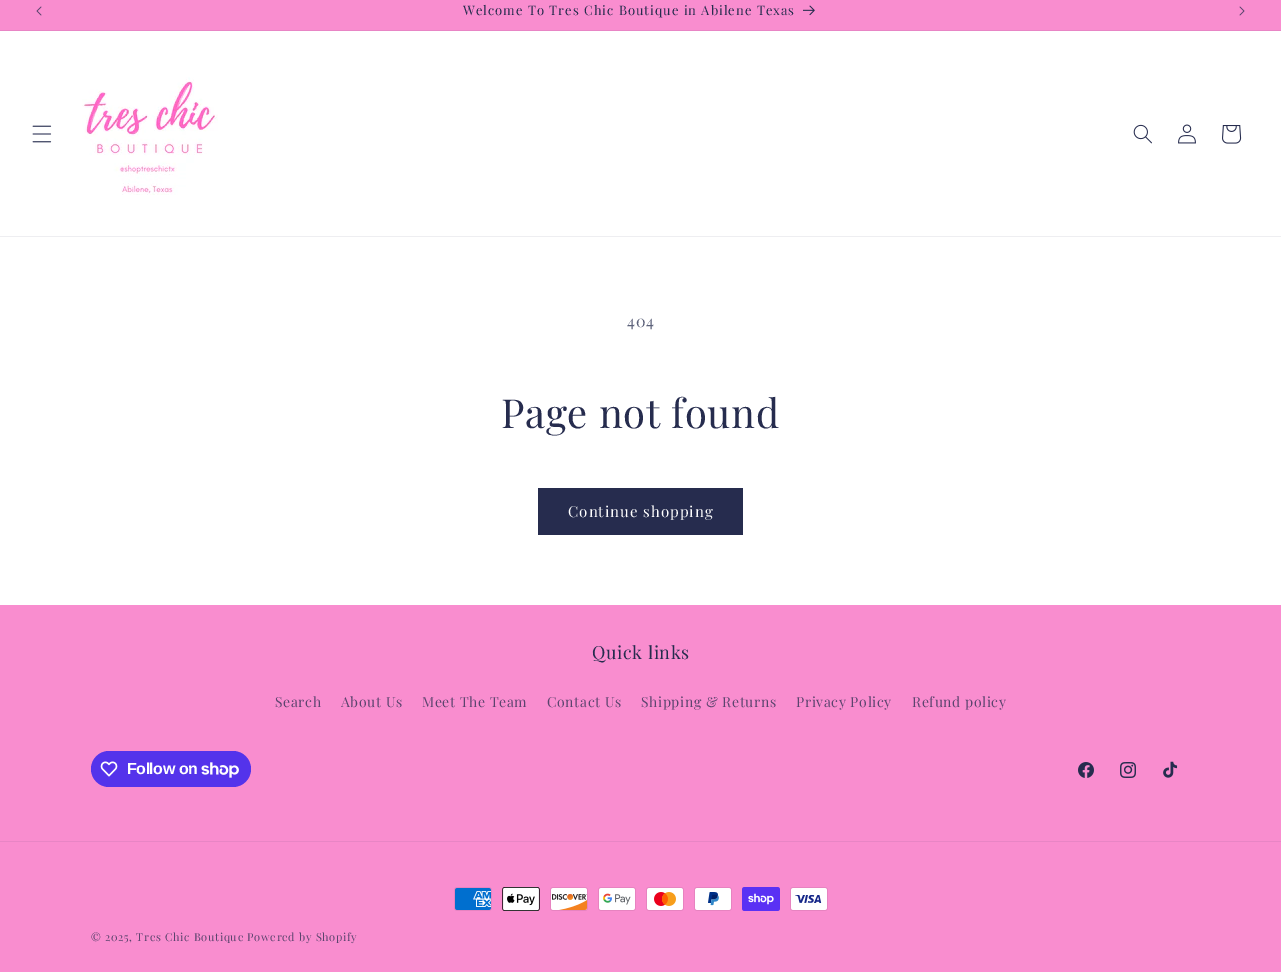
%!PS
<< /PageSize [1281 972] >> setpagedevice
/rgb { dup -16 bitshift 255 div exch dup -8 bitshift 255 and 255 div exch 255 and 255 div setrgbcolor } def
/font { [ exch dup neg 0 0 3 -1 roll 0 0 ] selectfont } def
/roundrect { 5 dict begin { /r /h /w /y /x } { exch def } forall
  x r add y moveto x w add y 2 copy h add r arct x w add y h add x 1 index r arct
  x y h add x y r arct x y 2 copy exch w add exch r arct closepath end } def
/picture { 5 dict begin { /h /w /y /x /name } { exch def } forall
  gsave x y translate w h scale
  w h 8 [w 0 0 h 0 0] name (r) file false 3 colorimage grestore end } def
0 972 translate 1 -1 scale
4 setmiterlimit
16#FFFFFF rgb
0 0 1281 972 rectfill
16#F98DCF rgb
0 0 1281 30 rectfill
16#E885C5 rgb
0 30 1281 1 rectfill
(pic1.raw) 36 6 6 10 picture
/PlayfairDisplay-Regular 13 font
16#262C4E rgb
463 15 moveto 1 0 (Welcome To Tres Chic Boutique in Abilene Texas) ashow
(pic2.raw) 803 5 12 11 picture
(pic3.raw) 1239 6 6 10 picture
16#EEEEF1 rgb
0 236 1281 1 rectfill
(pic4.raw) 32 125 20 18 picture
(pic5.raw) 82 77 136 118 picture
(pic6.raw) 1133 124 19 20 picture
(pic7.raw) 1178 124 18 20 picture
(pic8.raw) 1222 125 20 19 picture
/PlayfairDisplay-Regular 16 font
16#5C617A rgb
627 327 moveto 0.6 0 (404) ashow
/PlayfairDisplay-Regular 40 font
16#262C4E rgb
501 428 moveto 0.6 0 (Page not found) ashow
538 488 205 47 rectfill
/PlayfairDisplay-Regular 15 font
16#FFFFFF rgb
568 517 moveto 1 0 (Continue shopping) ashow
16#F98DCF rgb
0 605 1281 367 rectfill
/PlayfairDisplay-Regular 18 font
16#262C4E rgb
592 659 moveto 0.6 0 (Quick links) ashow
/PlayfairDisplay-Regular 14 font
16#5B446E rgb
275 707 moveto 0.6 0 (Search) ashow
341 707 moveto 0.6 0 (About Us) ashow
422 707 moveto 0.6 0 (Meet The Team) ashow
547 707 moveto 0.6 0 (Contact Us) ashow
641 707 moveto 0.6 0 (Shipping & Returns) ashow
796 707 moveto 0.6 0 (Privacy Policy) ashow
912 707 moveto 0.6 0 (Refund policy) ashow
16#5433EB rgb
91 751 160 36 18 roundrect fill
(pic9.raw) 100 761 18 16 picture
/LiberationSans-Bold 16 font
16#FFFFFF rgb
127 774 moveto -0.5 0 (Follow on) ashow
(pic10.raw) 201 762 38 16 picture
(pic11.raw) 1078 762 16 16 picture
(pic12.raw) 1120 762 16 16 picture
(pic13.raw) 1163 761 15 17 picture
16#E885C5 rgb
0 841 1281 1 rectfill
(pic14.raw) 454 887 38 24 picture
(pic15.raw) 502 887 38 24 picture
(pic16.raw) 550 887 38 24 picture
(pic17.raw) 598 887 38 24 picture
(pic18.raw) 646 887 38 24 picture
(pic19.raw) 694 887 38 24 picture
(pic20.raw) 742 887 38 24 picture
(pic21.raw) 790 887 38 24 picture
/PlayfairDisplay-Regular 11 font
16#5B446E rgb
91 941 moveto 0.7 0 (© 2025, Tres Chic Boutique Powered by Shopify) ashow
showpage
